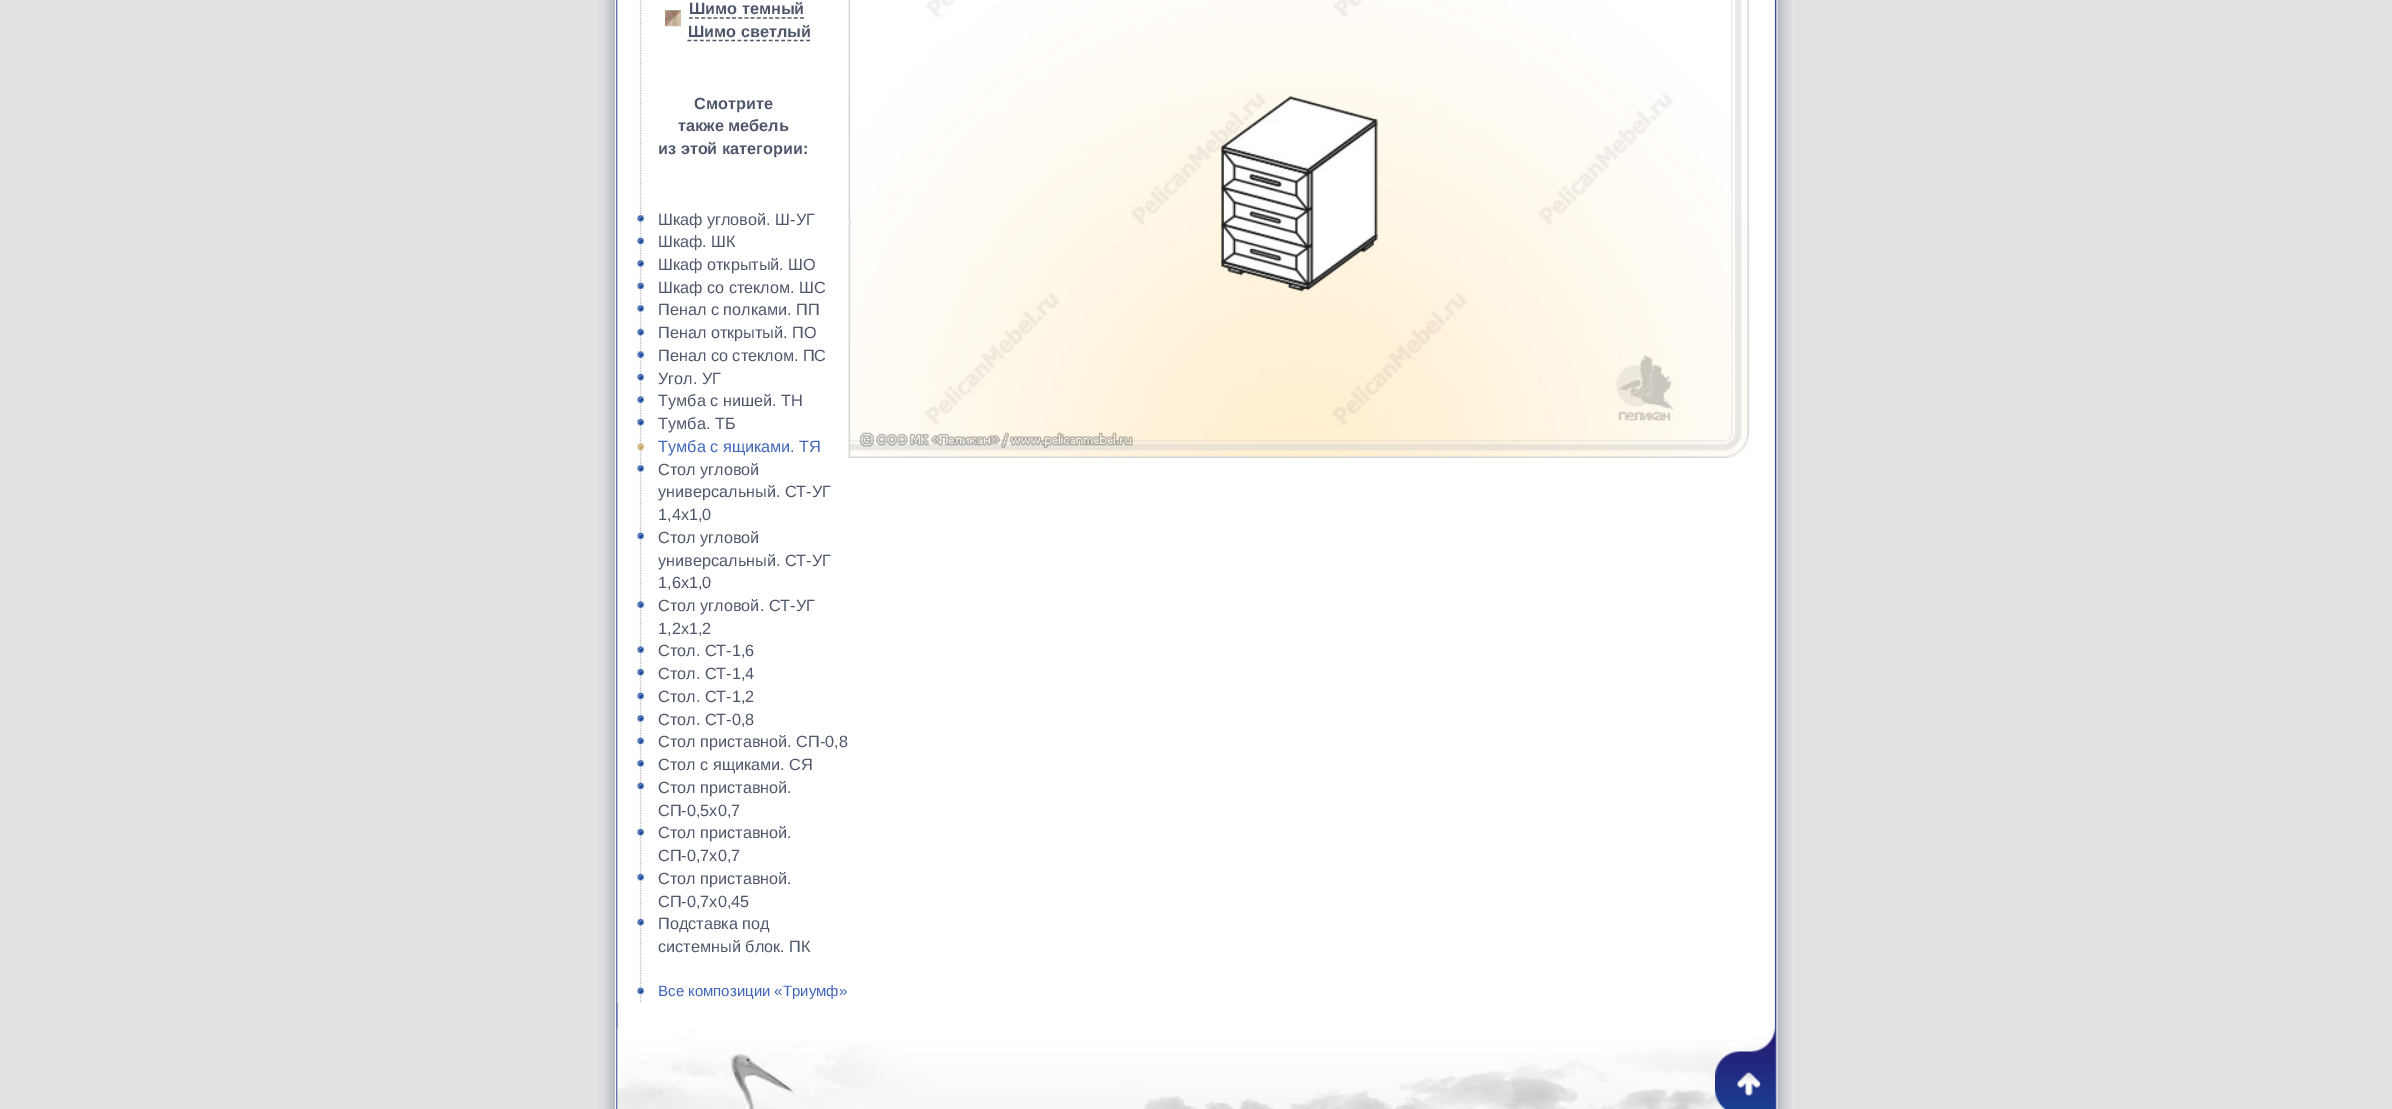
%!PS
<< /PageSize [2392 1109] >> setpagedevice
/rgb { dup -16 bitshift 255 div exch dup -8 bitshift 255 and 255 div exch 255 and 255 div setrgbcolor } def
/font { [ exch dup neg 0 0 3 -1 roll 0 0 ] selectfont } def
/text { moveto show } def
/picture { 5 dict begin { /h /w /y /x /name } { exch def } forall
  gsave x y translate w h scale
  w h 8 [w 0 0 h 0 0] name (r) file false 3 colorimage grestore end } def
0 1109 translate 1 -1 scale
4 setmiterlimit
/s1 { /LiberationSans-Bold 16.25 font 16#4F586A rgb } def
/s2 { /LiberationSans-Regular 16.25 font 16#4F586A rgb } def
/s3 { /LiberationSans-Regular 16.25 font 16#4166B9 rgb } def
/s4 { /LiberationSans-Regular 15 font 16#4166B9 rgb } def
16#E0E1E3 rgb
0 0 2392 1109 rectfill
(pic1.raw) 599 0 1195 1109 picture
(pic2.raw) 617 0 25 1003 picture
16#C0D3A6 rgb
665 10 16 1 rectfill
s1
(Шимо темный) 689 14 text
1.2 setlinewidth
[3.75 2.42] 0 setdash
689 18 moveto 804 18 lineto stroke
(pic3.raw) 665 10 17 17 picture
(Шимо светлый) 688 37 text
[3.75 2.5] 0 setdash
687.5 40.5 moveto 810 40.5 lineto stroke
(Смотрите) 694 109 text
(также мебель) 678 131 text
(из этой категории:) 658 154 text
(pic4.raw) 637 215 7 7 picture
s2
(Шкаф угловой. Ш-УГ) 658 225 text
(pic5.raw) 637 237 7 8 picture
(Шкаф. ШК) 658 247 text
(pic4.raw) 637 260 7 7 picture
(Шкаф открытый. ШО) 658 270 text
(pic5.raw) 637 282 7 8 picture
(Шкаф со стеклом. ШС) 658 293 text
(pic4.raw) 637 305 7 7 picture
(Пенал с полками. ПП) 658 315 text
(pic6.raw) 637 328 7 8 picture
(Пенал открытый. ПО) 658 338 text
(pic7.raw) 637 351 7 7 picture
(Пенал со стеклом. ПС) 658 361 text
(pic6.raw) 637 373 7 8 picture
(Угол. УГ) 658 384 text
(pic7.raw) 637 396 7 7 picture
(Тумба с нишей. ТН) 658 406 text
(pic6.raw) 637 418 7 8 picture
(Тумба. ТБ) 658 429 text
(pic8.raw) 637 443 7 8 picture
s3
(Тумба с ящиками. ТЯ) 658 452 text
(pic4.raw) 637 465 7 7 picture
s2
(Стол угловой) 658 475 text
(универсальный. СТ-УГ) 658 497 text
(1,4x1,0) 658 520 text
(pic5.raw) 637 532 7 8 picture
(Стол угловой) 658 543 text
(универсальный. СТ-УГ) 658 566 text
(1,6x1,0) 658 588 text
(pic7.raw) 637 601 7 7 picture
(Стол угловой. СТ-УГ) 658 611 text
(1,2x1,2) 658 634 text
(pic7.raw) 637 646 7 7 picture
(Стол. СТ-1,6) 658 656 text
(pic6.raw) 637 668 7 8 picture
(Стол. СТ-1,4) 658 679 text
(pic9.raw) 637 692 7 8 picture
(Стол. СТ-1,2) 658 702 text
(pic4.raw) 637 715 7 7 picture
(Стол. СТ-0,8) 658 725 text
(pic5.raw) 637 737 7 8 picture
(Стол приставной. СП-0,8) 658 747 text
(pic4.raw) 637 760 7 7 picture
(Стол с ящиками. СЯ) 658 770 text
(pic5.raw) 637 782 7 8 picture
(Стол приставной.) 658 793 text
(СП-0,5x0,7) 658 816 text
(pic6.raw) 637 828 7 8 picture
(Стол приставной.) 658 838 text
(СП-0,7x0,7) 658 861 text
(pic6.raw) 637 873 7 8 picture
(Стол приставной.) 658 884 text
(СП-0,7x0,45) 658 907 text
(pic6.raw) 637 918 7 8 picture
(Подставка под) 658 929 text
(системный блок. ПК) 658 952 text
(pic5.raw) 637 987 7 8 picture
s4
(Все композиции «Триумф») 658 996 text
(pic10.raw) 848 0 901 458 picture
(pic11.raw) 848 0 901 458 picture
(pic12.raw) 617 1027 1158 82 picture
(pic13.raw) 1715 1028 60 81 picture
showpage
